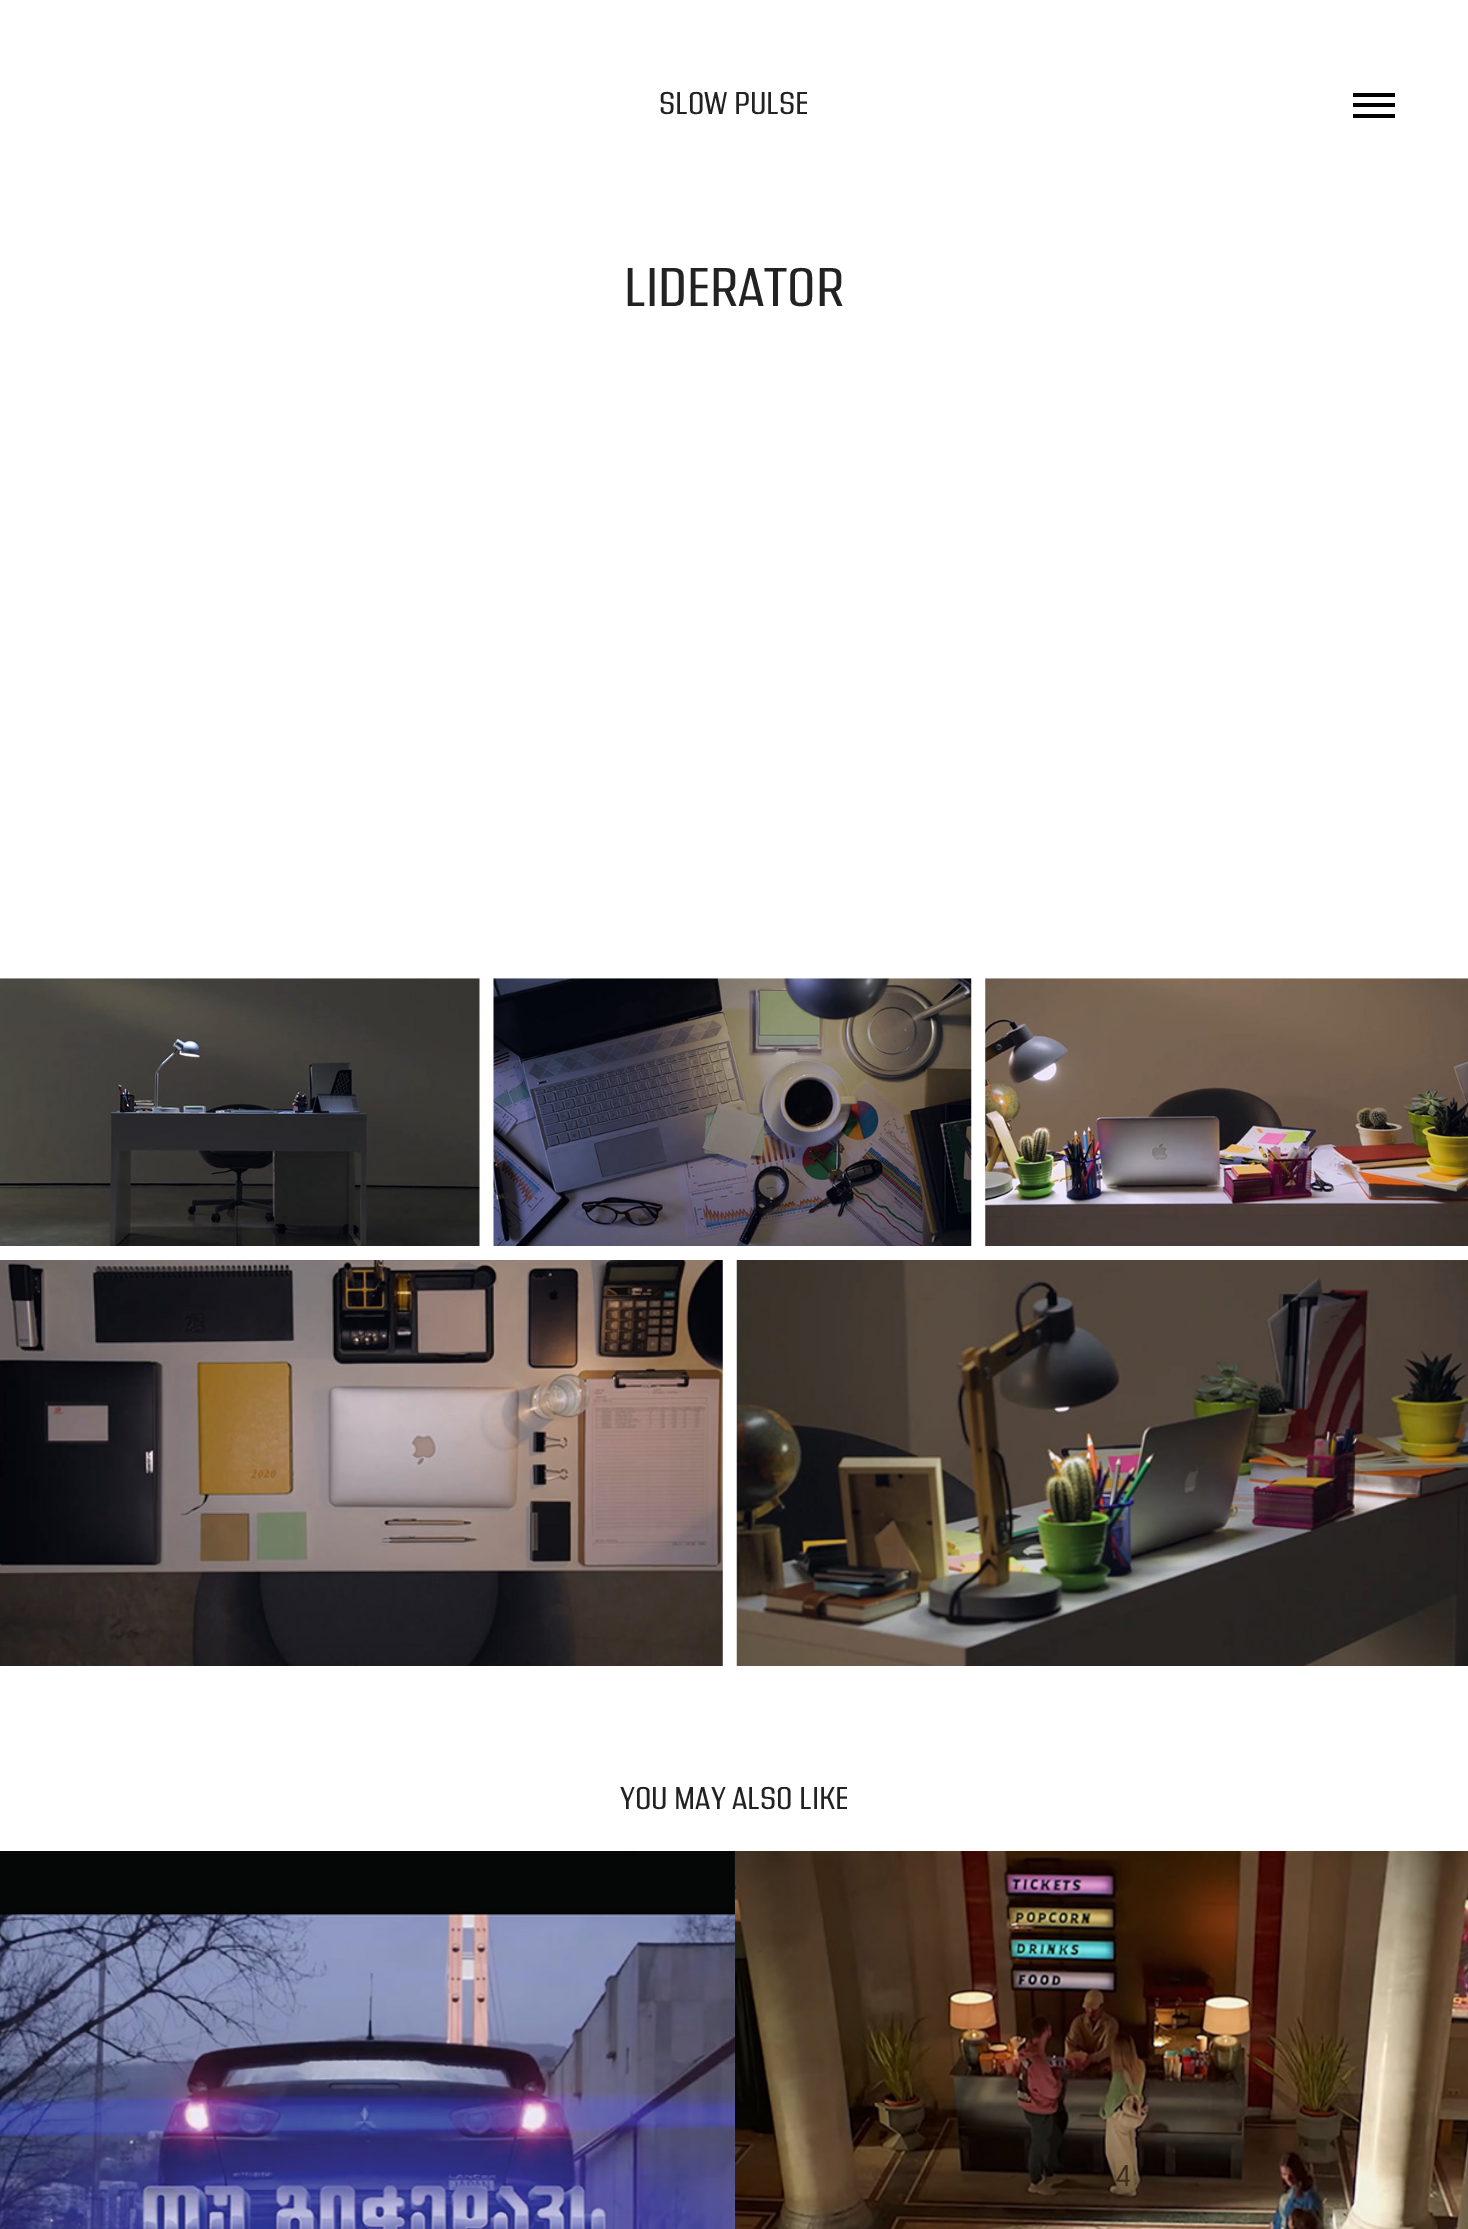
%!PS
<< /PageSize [1468 2229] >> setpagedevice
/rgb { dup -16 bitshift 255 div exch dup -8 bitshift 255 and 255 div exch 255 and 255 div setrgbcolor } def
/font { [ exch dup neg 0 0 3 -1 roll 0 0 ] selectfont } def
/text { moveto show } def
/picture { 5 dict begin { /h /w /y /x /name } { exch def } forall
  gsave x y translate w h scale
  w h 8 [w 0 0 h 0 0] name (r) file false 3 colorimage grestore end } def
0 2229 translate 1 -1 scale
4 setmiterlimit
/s1 { /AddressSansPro-Regular 31.5 font 16#222222 rgb } def
/s2 { /AddressSansPro-Regular 54.25 font 16#222222 rgb } def
/s3 { /AddressSansPro-Regular 30 font 16#3C2D1E rgb } def
16#FFFFFF rgb
0 0 1468 2229 rectfill
s1
(SLOW PULSE) 659 114 text
16#000000 rgb
1353 93 42 4 rectfill
1353 103 42 4 rectfill
1353 114 42 4 rectfill
s2
(LIDERATOR) 624 306 text
(pic1.raw) 0 978 480 268 picture
(pic2.raw) 493 978 479 268 picture
(pic3.raw) 985 978 483 268 picture
(pic4.raw) 0 1260 723 406 picture
(pic5.raw) 736 1260 732 406 picture
s1
(YOU MAY ALSO LIKE) 620 1809 text
(pic6.raw) 0 1851 735 378 picture
(pic7.raw) 735 1851 733 378 picture
s3
(4) 1116 2186 text
showpage
